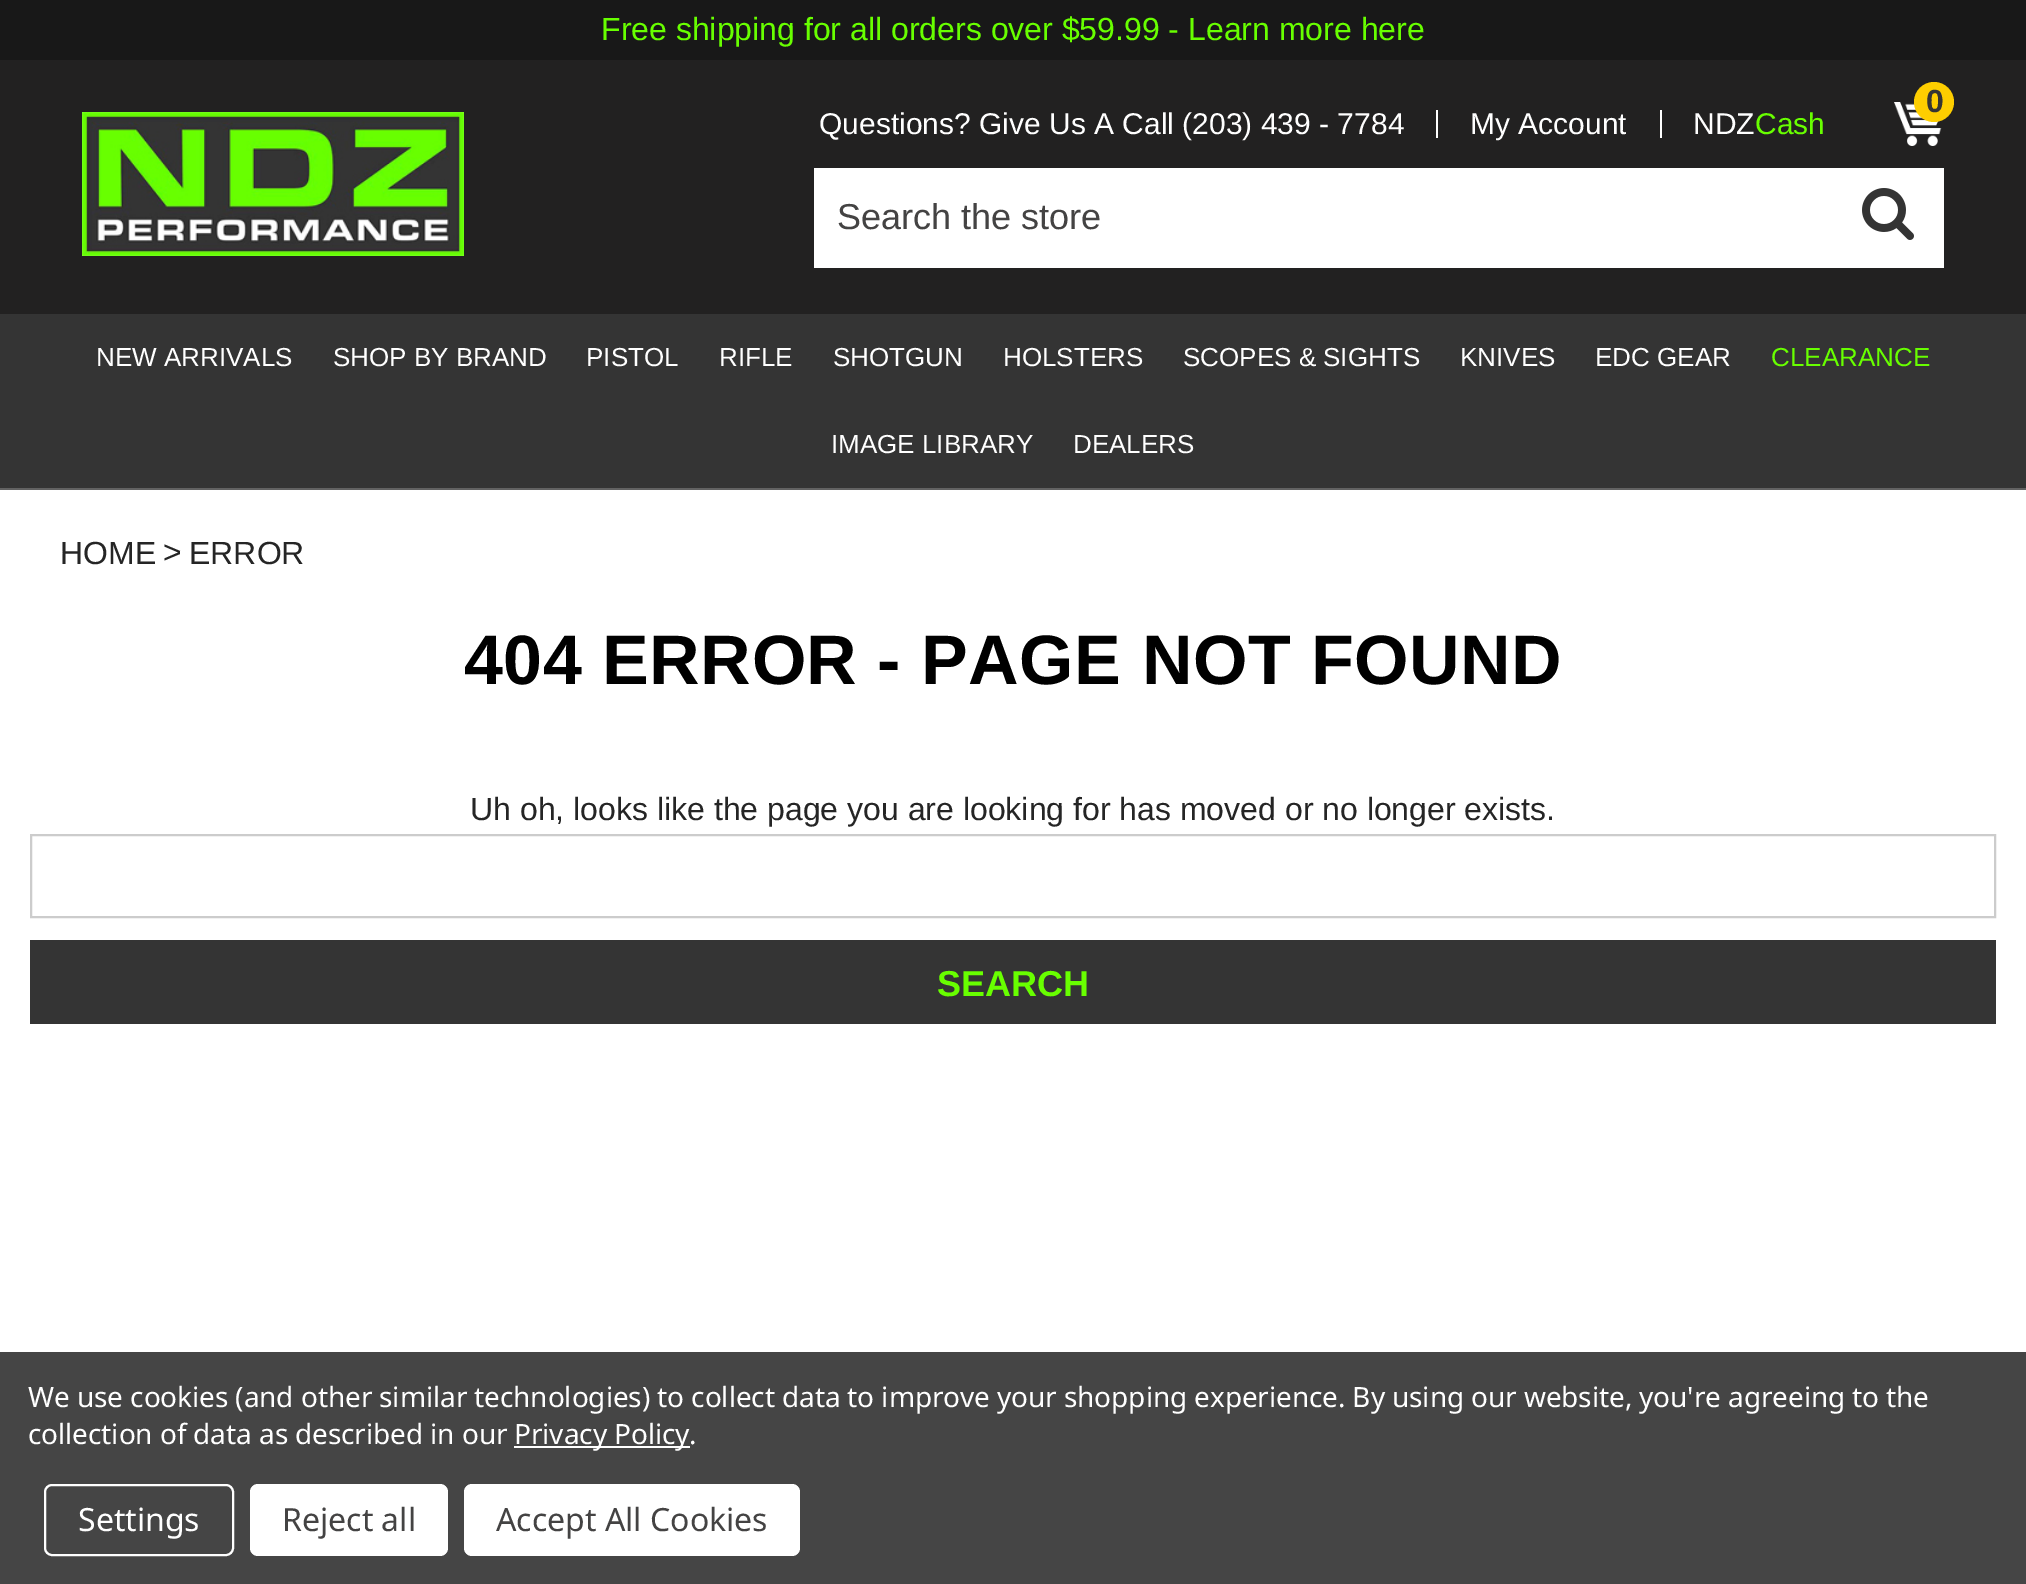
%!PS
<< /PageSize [2026 1584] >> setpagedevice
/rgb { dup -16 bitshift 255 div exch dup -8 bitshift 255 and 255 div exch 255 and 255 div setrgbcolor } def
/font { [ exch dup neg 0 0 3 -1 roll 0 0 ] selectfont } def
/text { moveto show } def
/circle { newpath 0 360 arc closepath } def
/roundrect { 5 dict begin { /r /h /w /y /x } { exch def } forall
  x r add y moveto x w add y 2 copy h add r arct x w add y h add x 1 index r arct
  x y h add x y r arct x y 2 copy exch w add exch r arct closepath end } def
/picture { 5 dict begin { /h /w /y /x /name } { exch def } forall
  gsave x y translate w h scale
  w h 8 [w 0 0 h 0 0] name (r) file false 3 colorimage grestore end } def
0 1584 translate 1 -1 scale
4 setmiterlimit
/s1 { /LiberationSans-Regular 32 font 16#68FF00 rgb } def
/s2 { /LiberationSans-Bold 32 font 16#343434 rgb } def
/s3 { /LiberationSans-Regular 30 font 16#FFFFFF rgb } def
/s4 { /LiberationSans-Regular 30 font 16#68FF00 rgb } def
/s5 { /LiberationSans-Regular 36 font 16#444343 rgb } def
/s6 { /LiberationSans-Regular 26 font 16#FFFFFF rgb } def
/s7 { /LiberationSans-Regular 26 font 16#68FF00 rgb } def
/s8 { /LiberationSans-Regular 32 font 16#252525 rgb } def
/s9 { /LiberationSans-Bold 36 font 16#68FF00 rgb } def
/s10 { /NotoSans-Regular 32 font 16#FFFFFF rgb } def
/s11 { /NotoSans-Regular 32 font 16#444343 rgb } def
16#FFFFFF rgb
0 0 2026 1584 rectfill
16#181818 rgb
0 0 2026 60 rectfill
s1
(Free shipping for all orders over $59.99 - Learn more here) 601 40 text
16#222121 rgb
0 60 2026 254 rectfill
16#626262 rgb
0 488 2026 2 rectfill
(pic1.raw) 82 112 382 144 picture
(pic2.raw) 1894 102 48 44 picture
16#FECE00 rgb
1934 102 20 circle fill
s2
(0) 1926 112 text
16#FFFFFF rgb
1436 110 2 28 rectfill
s3
(Questions? Give Us A Call \(203\) 439 - 7784) 819 134 text
1660 110 2 28 rectfill
(My Account) 1470 134 text
(NDZ) 1693 134 text
s4
(Cash) 1755 134 text
16#FFFFFF rgb
814 168 1130 100 rectfill
s5
(Search the store) 837 229 text
(pic3.raw) 1862 188 52 52 picture
16#343434 rgb
0 314 2026 174 rectfill
s6
(NEW ARRIVALS) 96 366 text
(SHOP BY BRAND) 333 366 text
(PISTOL) 586 366 text
(RIFLE) 719 366 text
(SHOTGUN) 833 366 text
(HOLSTERS) 1003 366 text
(SCOPES & SIGHTS) 1183 366 text
(KNIVES) 1460 366 text
(EDC GEAR) 1595 366 text
s7
(CLEARANCE) 1771 366 text
s6
(IMAGE LIBRARY) 831 453 text
(DEALERS) 1073 453 text
s8
(HOME) 60 564 text
(>) 163 563 text
(ERROR) 189 564 text
/LiberationSans-Bold 70 font
16#000000 rgb
464 684 moveto 0.5 0 (404 ERROR - PAGE NOT FOUND) ashow
s8
(Uh oh, looks like the page you are looking for has moved or no longer exists.) 470 820 text
16#CCCCCC rgb
2 setlinewidth
31 835 1964 82 rectstroke
16#343434 rgb
30 940 1966 84 rectfill
s9
(SEARCH) 937 996 text
16#454545 rgb
0 1352 2026 232 rectfill
/NotoSans-Regular 28 font
16#FFFFFF rgb
28 1407 moveto -0.1 0 (We use cookies \(and other similar technologies\) to collect data to improve your shopping experience. By using our website, you're agreeing to the) ashow
28 1444 moveto -0.1 0 (collection of data as described in our) ashow
514 1446 176 2 rectfill
514 1444 moveto -0.1 0 (Privacy Policy.) ashow
45 1485 188 70 7 roundrect stroke
s10
(Settings) 78 1531 text
250 1484 198 72 8 roundrect fill
s11
(Reject all) 282 1531 text
16#FFFFFF rgb
464 1484 336 72 8 roundrect fill
s11
(Accept All Cookies) 496 1531 text
showpage
